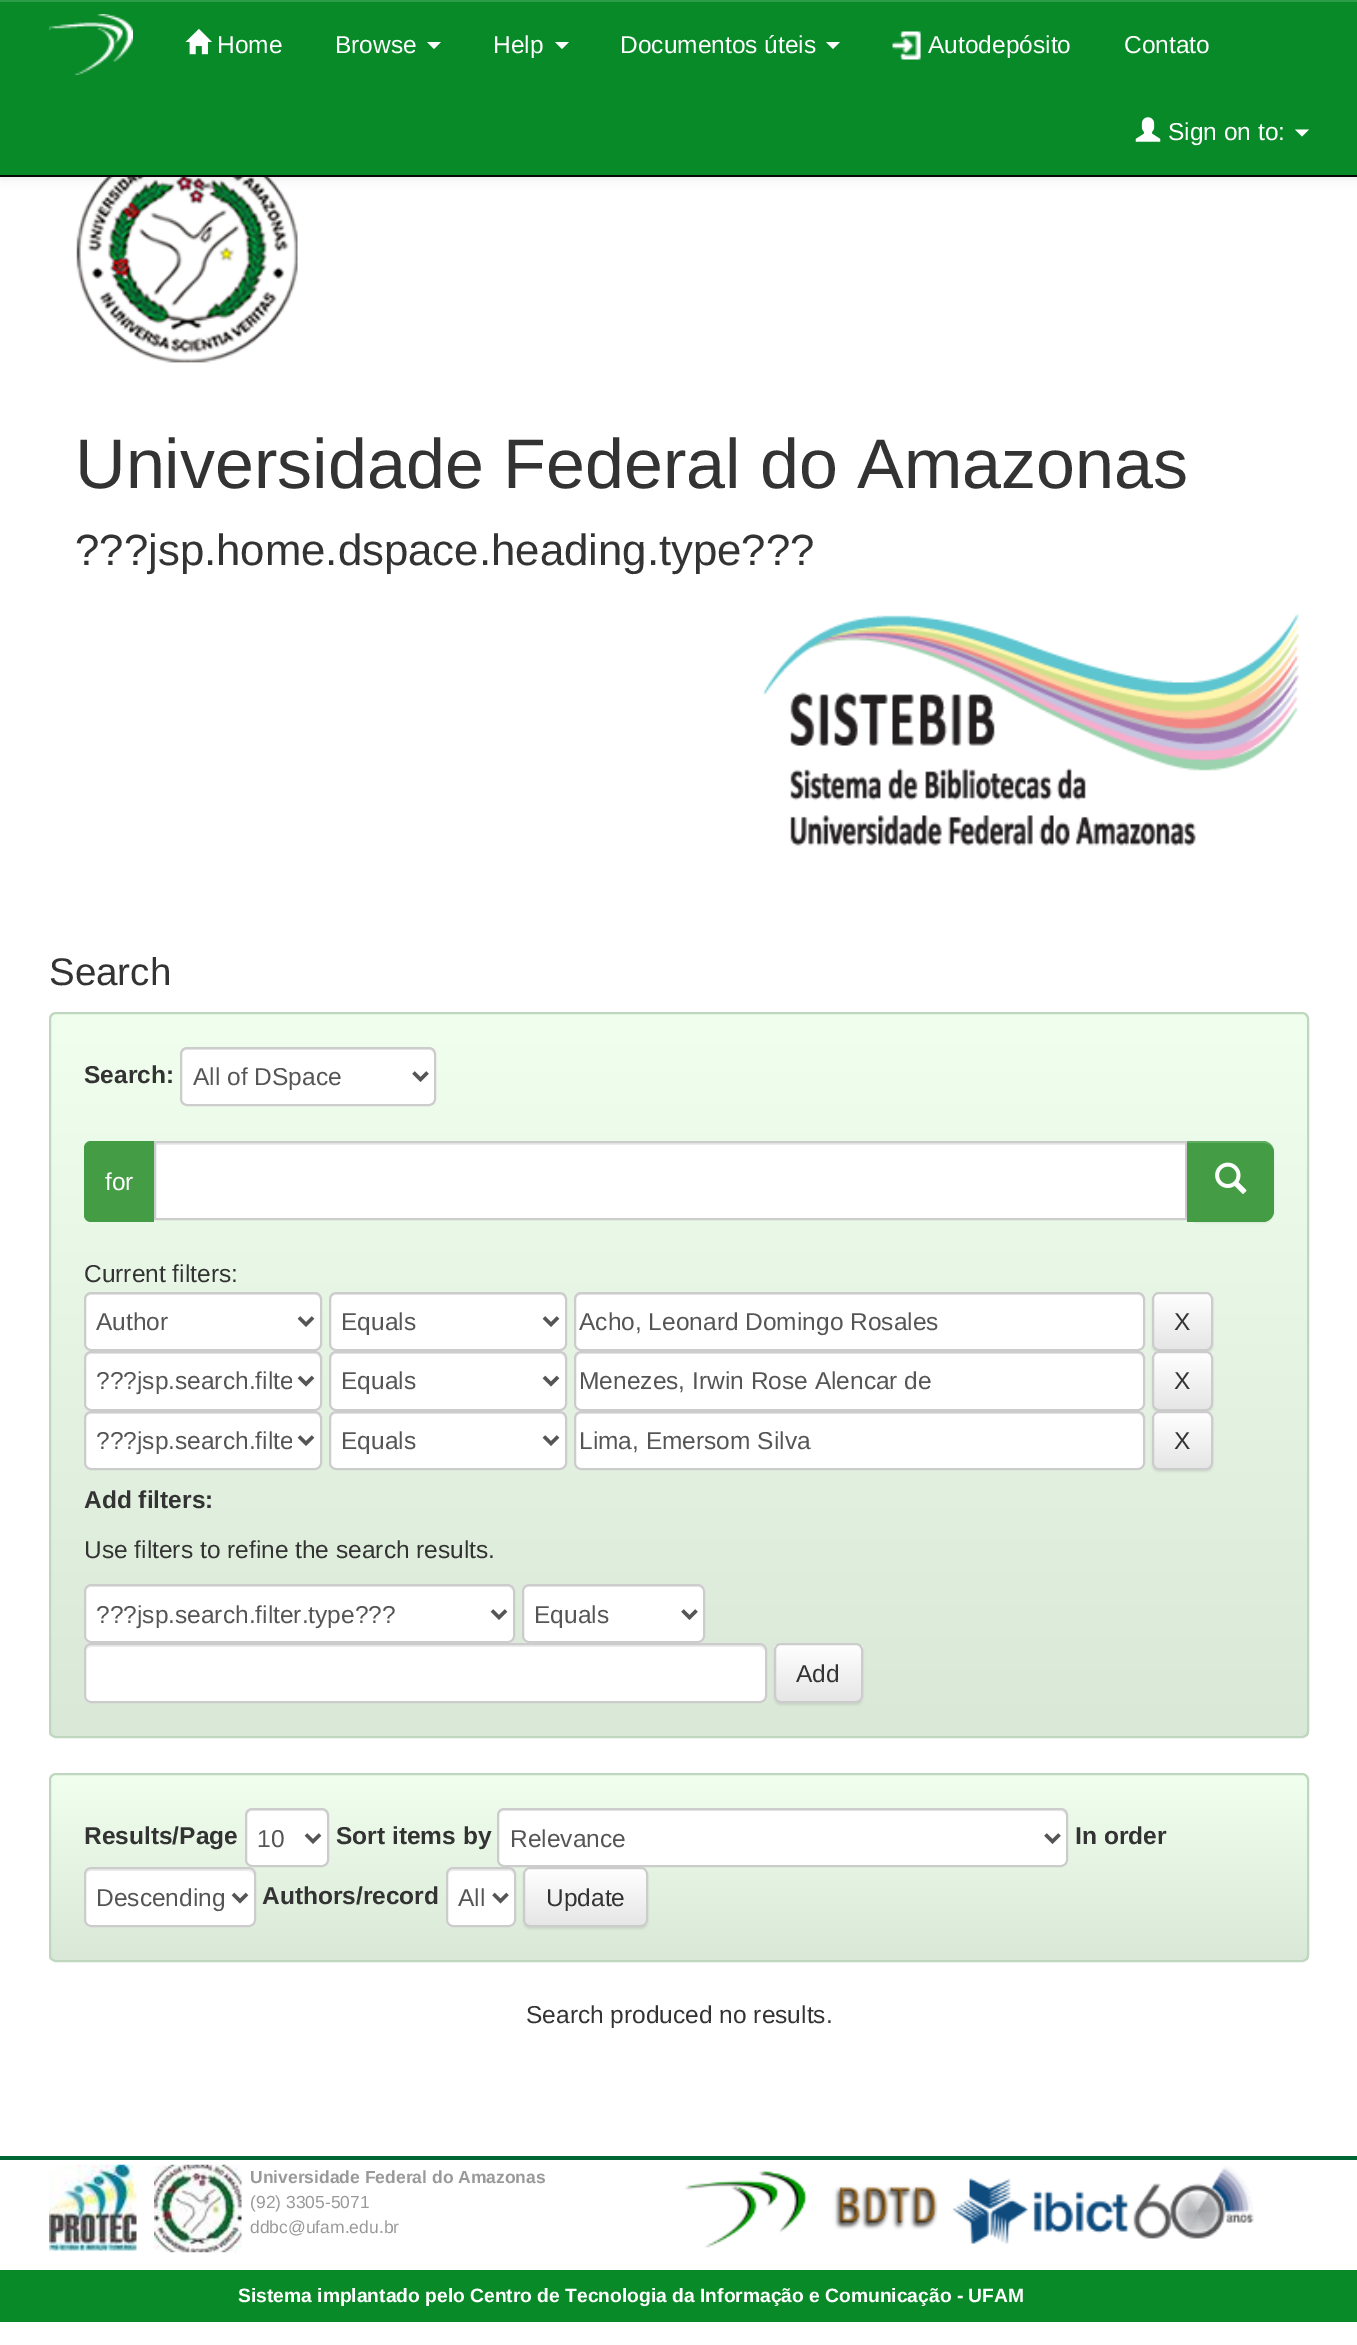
%!PS
<< /PageSize [1357 2345] /PageUsesTransparency true >> setpagedevice
/rgb { dup -16 bitshift 255 div exch dup -8 bitshift 255 and 255 div exch 255 and 255 div setrgbcolor } def
/font { [ exch dup neg 0 0 3 -1 roll 0 0 ] selectfont } def
/text { moveto show } def
/alpha { dup .setfillconstantalpha .setstrokeconstantalpha } def
/roundrect { 5 dict begin { /r /h /w /y /x } { exch def } forall
  x r add y moveto x w add y 2 copy h add r arct x w add y h add x 1 index r arct
  x y h add x y r arct x y 2 copy exch w add exch r arct closepath end } def
/shadow { 12 dict begin { /a /b /q /h /w /y /x } { exch def } forall gsave /was 0 def
  9 -2 -9 { dup b mul 4 div /e exch def 1 sub .425 mul 2.718 exch exp 1 add a .99 .min exch div /now exch def
    1 1 now sub 1 was sub div sub alpha /was now def
    w h .min e 2 mul add 0 gt { x e sub y e sub w e 2 mul add h e 2 mul add
      q e add b .6 mul add w h .min 2 div e add .min 0 .max roundrect fill } if } for grestore end } def
/picture { 5 dict begin { /h /w /y /x /name } { exch def } forall
  gsave x y translate w h scale
  w h 8 [w 0 0 h 0 0] name (r) file false 3 colorimage grestore end } def
0 .pushpdf14devicefilter
0 2345 translate 1 -1 scale
4 setmiterlimit
/s1 { /LiberationSans-Regular 24.5 font 16#FFFFFF rgb } def
/s2 { /LiberationSans-Regular 70 font 16#333333 rgb } def
/s3 { /LiberationSans-Regular 43.75 font 16#333333 rgb } def
/s4 { /LiberationSans-Regular 38.5 font 16#333333 rgb } def
/s5 { /LiberationSans-Bold 24.5 font 16#333333 rgb } def
/s6 { /LiberationSans-Regular 24.5 font 16#555555 rgb } def
/s7 { /LiberationSans-Regular 24.5 font 16#333333 rgb } def
/s8 { /LiberationSans-Bold 17.5 font 16#999999 rgb } def
/s9 { /LiberationSans-Regular 17.5 font 16#999999 rgb } def
/s10 { /LiberationSans-Bold 19.25 font 16#FFFFFF rgb } def
16#FFFFFF rgb
0 0 1357 2345 rectfill
(pic5.raw) 76 177 222 186 picture
16#000000 rgb
0 2 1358 177 0 4.5 0.07 shadow
16#088A29 rgb
0 2 1357 173 rectfill
16#2D9C49 rgb
0 0 1357 2 rectfill
16#080808 rgb
0 175 1357 2 rectfill
(pic1.raw) 49 14 84 61 picture
(pic2.raw) 185 28 27 27 picture
s1
(Home) 217 53 text
(Browse) 335 53 text
427 42 moveto 441 42 lineto 434 49 lineto closepath fill
(Help) 493 53 text
555 42 moveto 569 42 lineto 562 49 lineto closepath fill
(Documentos úteis) 620 53 text
826 42 moveto 840 42 lineto 833 49 lineto closepath fill
(pic3.raw) 892 31 29 29 picture
(Autodepósito) 928 53 text
(Contato) 1124 53 text
(pic4.raw) 1135 117 26 25 picture
(Sign on to:) 1168 140 text
1295 129.5 moveto 1309 129.5 lineto 1302 136.5 lineto closepath fill
s2
(Universidade Federal do Amazonas) 75 488 text
s3
(???jsp.home.dspace.heading.type???) 75 565 text
(pic6.raw) 762 614 537 232 picture
s4
(Search) 49 985 text
gsave
49 1012 1260 726 7 roundrect clip newpath
gsave 49 1013 moveto 1309 1013 lineto 1309 1736 lineto 49 1736 lineto closepath clip newpath
<< /ShadingType 2 /ColorSpace /DeviceRGB /Coords [679 1013 679 1736] /Extend [true true] /Function << /FunctionType 2 /Domain [0 1] /C0 [0.945 1 0.933] /C1 [0.855 0.91 0.843] /N 1 >> >> shfill grestore
grestore
16#BED7BE rgb
2 setlinewidth
50 1013 1258 724 6 roundrect stroke
s5
(Search:) 84 1083 text
16#FFFFFF rgb
180 1047 256 59 7 roundrect fill
16#ECECEC rgb
187 1050 moveto 429 1050 lineto 432 1050 434 1052 434 1055 curveto 434 1052 433 1048 429 1048 curveto 187 1048 lineto 183 1048 182 1052 182 1055 curveto 182 1052 184 1050 187 1050 curveto closepath fill
16#CCCCCC rgb
181 1048 254 57 6 roundrect stroke
16#555555 rgb
3.5 setlinewidth
413.5 1072.5 moveto 420.5 1079.5 lineto 427.5 1072.5 lineto stroke
s6
(All of DSpace) 193 1085 text
16#449D44 rgb
91 1141 moveto 154 1141 lineto 154 1222 lineto 91 1222 lineto 87 1222 84 1219 84 1215 curveto 84 1148 lineto 84 1144 87 1141 91 1141 curveto closepath fill
s1
(for) 105 1190 text
156 1145 1029 73 rectfill
16#ECECEC rgb
156 1143 1029 2 rectfill
16#CCCCCC rgb
2 setlinewidth
155 1142 1031 77 rectstroke
16#000000 rgb
1187 1143 87 80 11 1 0.07 shadow
16#449D44 rgb
1187 1141 moveto 1263 1141 lineto 1269 1141 1274 1146 1274 1152 curveto 1274 1211 lineto 1274 1217 1269 1222 1263 1222 curveto 1187 1222 lineto closepath fill
0.15 alpha
16#FFFFFF rgb
1187 1141 moveto 1187 1143 lineto 1264 1143 lineto 1269 1143 1274 1147 1274 1153 curveto 1274 1147 1270 1141 1263 1141 curveto closepath fill
1 alpha
(pic7.raw) 1215 1162 32 32 picture
s7
(Current filters:) 84 1282 text
16#FFFFFF rgb
84 1292 238 59 7 roundrect fill
16#ECECEC rgb
91 1295 moveto 315 1295 lineto 318 1295 320 1297 320 1300 curveto 320 1297 320 1294 316 1293 curveto 90 1293 lineto 86 1294 86 1297 86 1300 curveto 86 1297 88 1295 91 1295 curveto closepath fill
16#CCCCCC rgb
85 1293 236 57 6 roundrect stroke
16#555555 rgb
3.5 setlinewidth
299 1317.5 moveto 306 1324.5 lineto 313 1317.5 lineto stroke
(Author) 96 1330 text
16#FFFFFF rgb
329 1292 238 59 7 roundrect fill
16#ECECEC rgb
336 1295 moveto 560 1295 lineto 563 1295 565 1297 565 1300 curveto 565 1297 565 1294 561 1293 curveto 335 1293 lineto 331 1294 331 1297 331 1300 curveto 331 1297 333 1295 336 1295 curveto closepath fill
16#CCCCCC rgb
2 setlinewidth
330 1293 236 57 6 roundrect stroke
16#555555 rgb
3.5 setlinewidth
544 1317.5 moveto 551 1324.5 lineto 558 1317.5 lineto stroke
(Equals) 341 1330 text
16#FFFFFF rgb
574 1292 571 59 7 roundrect fill
16#ECECEC rgb
581 1295 moveto 1138 1295 lineto 1140 1295 1143 1297 1143 1300 curveto 1143 1298 lineto 1143 1295 1141 1293 1138 1293 curveto 581 1293 lineto 578 1293 576 1295 576 1298 curveto 576 1300 lineto 576 1297 578 1295 581 1295 curveto closepath fill
16#CCCCCC rgb
2 setlinewidth
575 1293 569 57 6 roundrect stroke
s6
(Acho, Leonard Domingo Rosales) 579 1330 text
16#000000 rgb
1152 1293 61 60 7 1 0.07 shadow
gsave
1152 1292 61 59 7 roundrect clip newpath
gsave 1152 1293 moveto 1213 1293 lineto 1213 1349 lineto 1152 1349 lineto closepath clip newpath
<< /ShadingType 2 /ColorSpace /DeviceRGB /Coords [1182 1293 1182 1349] /Extend [true true] /Function << /FunctionType 2 /Domain [0 1] /C0 [1 1 1] /C1 [0.902 0.902 0.902] /N 1 >> >> shfill grestore
grestore
16#CCCCCC rgb
1153 1293 59 57 6 roundrect stroke
s7
(X) 1174 1330 text
16#FFFFFF rgb
84 1351 238 60 7 roundrect fill
16#ECECEC rgb
91 1354 moveto 315 1354 lineto 318 1354 320 1357 320 1360 curveto 320 1357 320 1354 316 1353 curveto 90 1353 lineto 86 1354 86 1357 86 1360 curveto 86 1357 88 1354 91 1354 curveto closepath fill
16#CCCCCC rgb
85 1352 236 58 6 roundrect stroke
16#555555 rgb
3.5 setlinewidth
299 1377 moveto 306 1384 lineto 313 1377 lineto stroke
gsave
96 1365 196 32 rectclip
(???jsp.search.filte) 96 1389 text
grestore
16#FFFFFF rgb
329 1351 238 60 7 roundrect fill
16#ECECEC rgb
336 1354 moveto 560 1354 lineto 563 1354 565 1357 565 1360 curveto 565 1357 565 1354 561 1353 curveto 335 1353 lineto 331 1354 331 1357 331 1360 curveto 331 1357 333 1354 336 1354 curveto closepath fill
16#CCCCCC rgb
2 setlinewidth
330 1352 236 58 6 roundrect stroke
16#555555 rgb
3.5 setlinewidth
544 1377 moveto 551 1384 lineto 558 1377 lineto stroke
(Equals) 341 1389 text
16#FFFFFF rgb
574 1351 571 60 7 roundrect fill
16#ECECEC rgb
581 1354 moveto 1138 1354 lineto 1140 1354 1143 1357 1143 1360 curveto 1143 1358 lineto 1143 1355 1141 1353 1138 1353 curveto 581 1353 lineto 578 1353 576 1355 576 1358 curveto 576 1360 lineto 576 1357 578 1354 581 1354 curveto closepath fill
16#CCCCCC rgb
2 setlinewidth
575 1352 569 58 6 roundrect stroke
s6
(Menezes, Irwin Rose Alencar de) 579 1389 text
16#000000 rgb
1152 1353 61 59 7 1 0.07 shadow
gsave
1152 1351 61 60 7 roundrect clip newpath
gsave 1152 1353 moveto 1213 1353 lineto 1213 1409 lineto 1152 1409 lineto closepath clip newpath
<< /ShadingType 2 /ColorSpace /DeviceRGB /Coords [1182 1353 1182 1409] /Extend [true true] /Function << /FunctionType 2 /Domain [0 1] /C0 [1 1 1] /C1 [0.902 0.902 0.902] /N 1 >> >> shfill grestore
grestore
16#CCCCCC rgb
1153 1352 59 58 6 roundrect stroke
s7
(X) 1174 1389 text
16#FFFFFF rgb
84 1411 238 59 7 roundrect fill
16#ECECEC rgb
91 1414 moveto 315 1414 lineto 318 1414 320 1416 320 1419 curveto 320 1416 320 1413 316 1412 curveto 90 1412 lineto 86 1413 86 1416 86 1419 curveto 86 1416 88 1414 91 1414 curveto closepath fill
16#CCCCCC rgb
85 1412 236 57 6 roundrect stroke
16#555555 rgb
3.5 setlinewidth
299 1436.5 moveto 306 1443.5 lineto 313 1436.5 lineto stroke
gsave
96 1425 196 31 rectclip
(???jsp.search.filte) 96 1449 text
grestore
16#FFFFFF rgb
329 1411 238 59 7 roundrect fill
16#ECECEC rgb
336 1414 moveto 560 1414 lineto 563 1414 565 1416 565 1419 curveto 565 1416 565 1413 561 1412 curveto 335 1412 lineto 331 1413 331 1416 331 1419 curveto 331 1416 333 1414 336 1414 curveto closepath fill
16#CCCCCC rgb
2 setlinewidth
330 1412 236 57 6 roundrect stroke
16#555555 rgb
3.5 setlinewidth
544 1436.5 moveto 551 1443.5 lineto 558 1436.5 lineto stroke
(Equals) 341 1449 text
16#FFFFFF rgb
574 1411 571 59 7 roundrect fill
16#ECECEC rgb
581 1414 moveto 1138 1414 lineto 1140 1414 1143 1416 1143 1419 curveto 1143 1417 lineto 1143 1414 1141 1412 1138 1412 curveto 581 1412 lineto 578 1412 576 1414 576 1417 curveto 576 1419 lineto 576 1416 578 1414 581 1414 curveto closepath fill
16#CCCCCC rgb
2 setlinewidth
575 1412 569 57 6 roundrect stroke
s6
(Lima, Emersom Silva) 579 1449 text
16#000000 rgb
1152 1412 61 60 7 1 0.07 shadow
gsave
1152 1411 61 59 7 roundrect clip newpath
gsave 1152 1412 moveto 1213 1412 lineto 1213 1468 lineto 1152 1468 lineto closepath clip newpath
<< /ShadingType 2 /ColorSpace /DeviceRGB /Coords [1182 1412 1182 1468] /Extend [true true] /Function << /FunctionType 2 /Domain [0 1] /C0 [1 1 1] /C1 [0.902 0.902 0.902] /N 1 >> >> shfill grestore
grestore
16#CCCCCC rgb
1153 1412 59 57 6 roundrect stroke
s7
(X) 1174 1449 text
s5
(Add filters:) 84 1508 text
s7
(Use filters to refine the search results.) 84 1558 text
16#FFFFFF rgb
84 1584 431 59 7 roundrect fill
16#ECECEC rgb
91 1587 moveto 508 1587 lineto 510 1587 513 1590 513 1592 curveto 513 1589 511 1586 508 1586 curveto 91 1586 lineto 88 1586 86 1589 86 1592 curveto 86 1590 88 1587 91 1587 curveto closepath fill
16#CCCCCC rgb
85 1585 429 57 6 roundrect stroke
16#555555 rgb
3.5 setlinewidth
492 1610.5 moveto 499 1617.5 lineto 506 1610.5 lineto stroke
(???jsp.search.filter.type???) 96 1623 text
16#FFFFFF rgb
522 1584 183 59 7 roundrect fill
16#ECECEC rgb
528 1587 moveto 698 1587 lineto 701 1587 704 1590 704 1592 curveto 704 1589 703 1587 700 1586 curveto 528 1586 lineto 525 1586 523 1589 523 1592 curveto 523 1590 526 1587 528 1587 curveto closepath fill
16#CCCCCC rgb
2 setlinewidth
523 1585 181 57 6 roundrect stroke
16#555555 rgb
3.5 setlinewidth
682.5 1610.5 moveto 689.5 1617.5 lineto 696.5 1610.5 lineto stroke
(Equals) 534 1623 text
16#FFFFFF rgb
84 1643 683 60 7 roundrect fill
16#ECECEC rgb
91 1647 moveto 760 1647 lineto 762 1647 765 1649 765 1652 curveto 765 1650 lineto 765 1647 763 1645 760 1645 curveto 91 1645 lineto 88 1645 86 1647 86 1650 curveto 86 1652 lineto 86 1649 88 1647 91 1647 curveto closepath fill
16#CCCCCC rgb
2 setlinewidth
85 1644 681 58 6 roundrect stroke
16#000000 rgb
774 1645 89 60 7 1 0.07 shadow
gsave
774 1643 89 60 7 roundrect clip newpath
gsave 774 1645 moveto 863 1645 lineto 863 1701 lineto 774 1701 lineto closepath clip newpath
<< /ShadingType 2 /ColorSpace /DeviceRGB /Coords [818 1645 818 1701] /Extend [true true] /Function << /FunctionType 2 /Domain [0 1] /C0 [1 1 1] /C1 [0.902 0.902 0.902] /N 1 >> >> shfill grestore
grestore
16#CCCCCC rgb
775 1644 87 58 6 roundrect stroke
s7
(Add) 796 1682 text
gsave
49 1773 1260 189 7 roundrect clip newpath
gsave 49 1775 moveto 1309 1775 lineto 1309 1960 lineto 49 1960 lineto closepath clip newpath
<< /ShadingType 2 /ColorSpace /DeviceRGB /Coords [679 1775 679 1960] /Extend [true true] /Function << /FunctionType 2 /Domain [0 1] /C0 [0.945 1 0.933] /C1 [0.855 0.91 0.843] /N 1 >> >> shfill grestore
grestore
16#BED7BE rgb
50 1774 1258 187 6 roundrect stroke
s5
(Results/Page) 84 1844 text
16#FFFFFF rgb
245 1808 84 59 7 roundrect fill
16#ECECEC rgb
252 1811 moveto 322 1811 lineto 325 1811 327 1814 327 1816 curveto 327 1807 316 1810 310 1810 curveto 264 1810 lineto 258 1810 247 1807 247 1816 curveto 247 1814 249 1811 252 1811 curveto closepath fill
16#CCCCCC rgb
246 1809 82 57 6 roundrect stroke
16#555555 rgb
3.5 setlinewidth
306 1834.5 moveto 313 1841.5 lineto 320 1834.5 lineto stroke
s6
(10) 257 1847 text
s5
(Sort items by) 336 1844 text
16#FFFFFF rgb
497 1808 571 59 7 roundrect fill
16#ECECEC rgb
504 1811 moveto 1060 1811 lineto 1063 1811 1066 1814 1066 1816 curveto 1066 1813 1064 1810 1061 1810 curveto 504 1810 lineto 501 1810 499 1813 499 1816 curveto 499 1814 501 1811 504 1811 curveto closepath fill
16#CCCCCC rgb
2 setlinewidth
498 1809 569 57 6 roundrect stroke
16#555555 rgb
3.5 setlinewidth
1045.5 1834.5 moveto 1052.5 1841.5 lineto 1059.5 1834.5 lineto stroke
s6
(Relevance) 510 1847 text
s5
(In order) 1075 1844 text
16#FFFFFF rgb
84 1867 172 60 7 roundrect fill
16#ECECEC rgb
91 1871 moveto 248 1871 lineto 251 1871 254 1873 254 1876 curveto 254 1874 lineto 254 1871 252 1869 249 1869 curveto 91 1869 lineto 88 1869 86 1871 86 1874 curveto 86 1876 lineto 86 1873 88 1871 91 1871 curveto closepath fill
16#CCCCCC rgb
2 setlinewidth
85 1868 170 58 6 roundrect stroke
16#555555 rgb
3.5 setlinewidth
233 1894 moveto 240 1901 lineto 247 1894 lineto stroke
s6
(Descending) 96 1906 text
s5
(Authors/record) 262 1904 text
16#FFFFFF rgb
446 1867 70 60 7 roundrect fill
16#ECECEC rgb
453 1871 moveto 510 1871 lineto 516 1872 514 1880 514 1884 curveto 514 1923 lineto 515 1922 515 1921 515 1920 curveto 515 1874 lineto 515 1871 513 1869 510 1869 curveto 453 1869 lineto 450 1869 448 1871 448 1874 curveto 448 1876 lineto 448 1873 450 1871 453 1871 curveto closepath fill
16#CCCCCC rgb
2 setlinewidth
447 1868 68 58 6 roundrect stroke
16#555555 rgb
3.5 setlinewidth
493.5 1894 moveto 500.5 1901 lineto 507.5 1894 lineto stroke
s6
(All) 458 1906 text
16#000000 rgb
523 1869 125 60 7 1 0.07 shadow
gsave
523 1867 125 60 7 roundrect clip newpath
gsave 523 1869 moveto 648 1869 lineto 648 1925 lineto 523 1925 lineto closepath clip newpath
<< /ShadingType 2 /ColorSpace /DeviceRGB /Coords [585 1869 585 1925] /Extend [true true] /Function << /FunctionType 2 /Domain [0 1] /C0 [1 1 1] /C1 [0.902 0.902 0.902] /N 1 >> >> shfill grestore
grestore
16#CCCCCC rgb
2 setlinewidth
524 1868 123 58 6 roundrect stroke
s7
(Update) 546 1906 text
(Search produced no results.) 526 2023 text
16#006633 rgb
0 2156 1357 4 rectfill
(pic8.raw) 49 2164 88 87 picture
(pic9.raw) 154 2164 88 89 picture
s8
(Universidade Federal do Amazonas) 250 2183 text
s9
(\(92\) 3305-5071) 250 2208 text
(ddbc@ufam.edu.br) 250 2233 text
(pic10.raw) 684 2170 254 78 picture
(pic11.raw) 952 2165 302 79 picture
16#088A29 rgb
0 2270 1357 52 rectfill
s10
(Sistema implantado pelo Centro de Tecnologia da Informação e Comunicação - UFAM) 238 2302 text
.poppdf14devicefilter showpage
